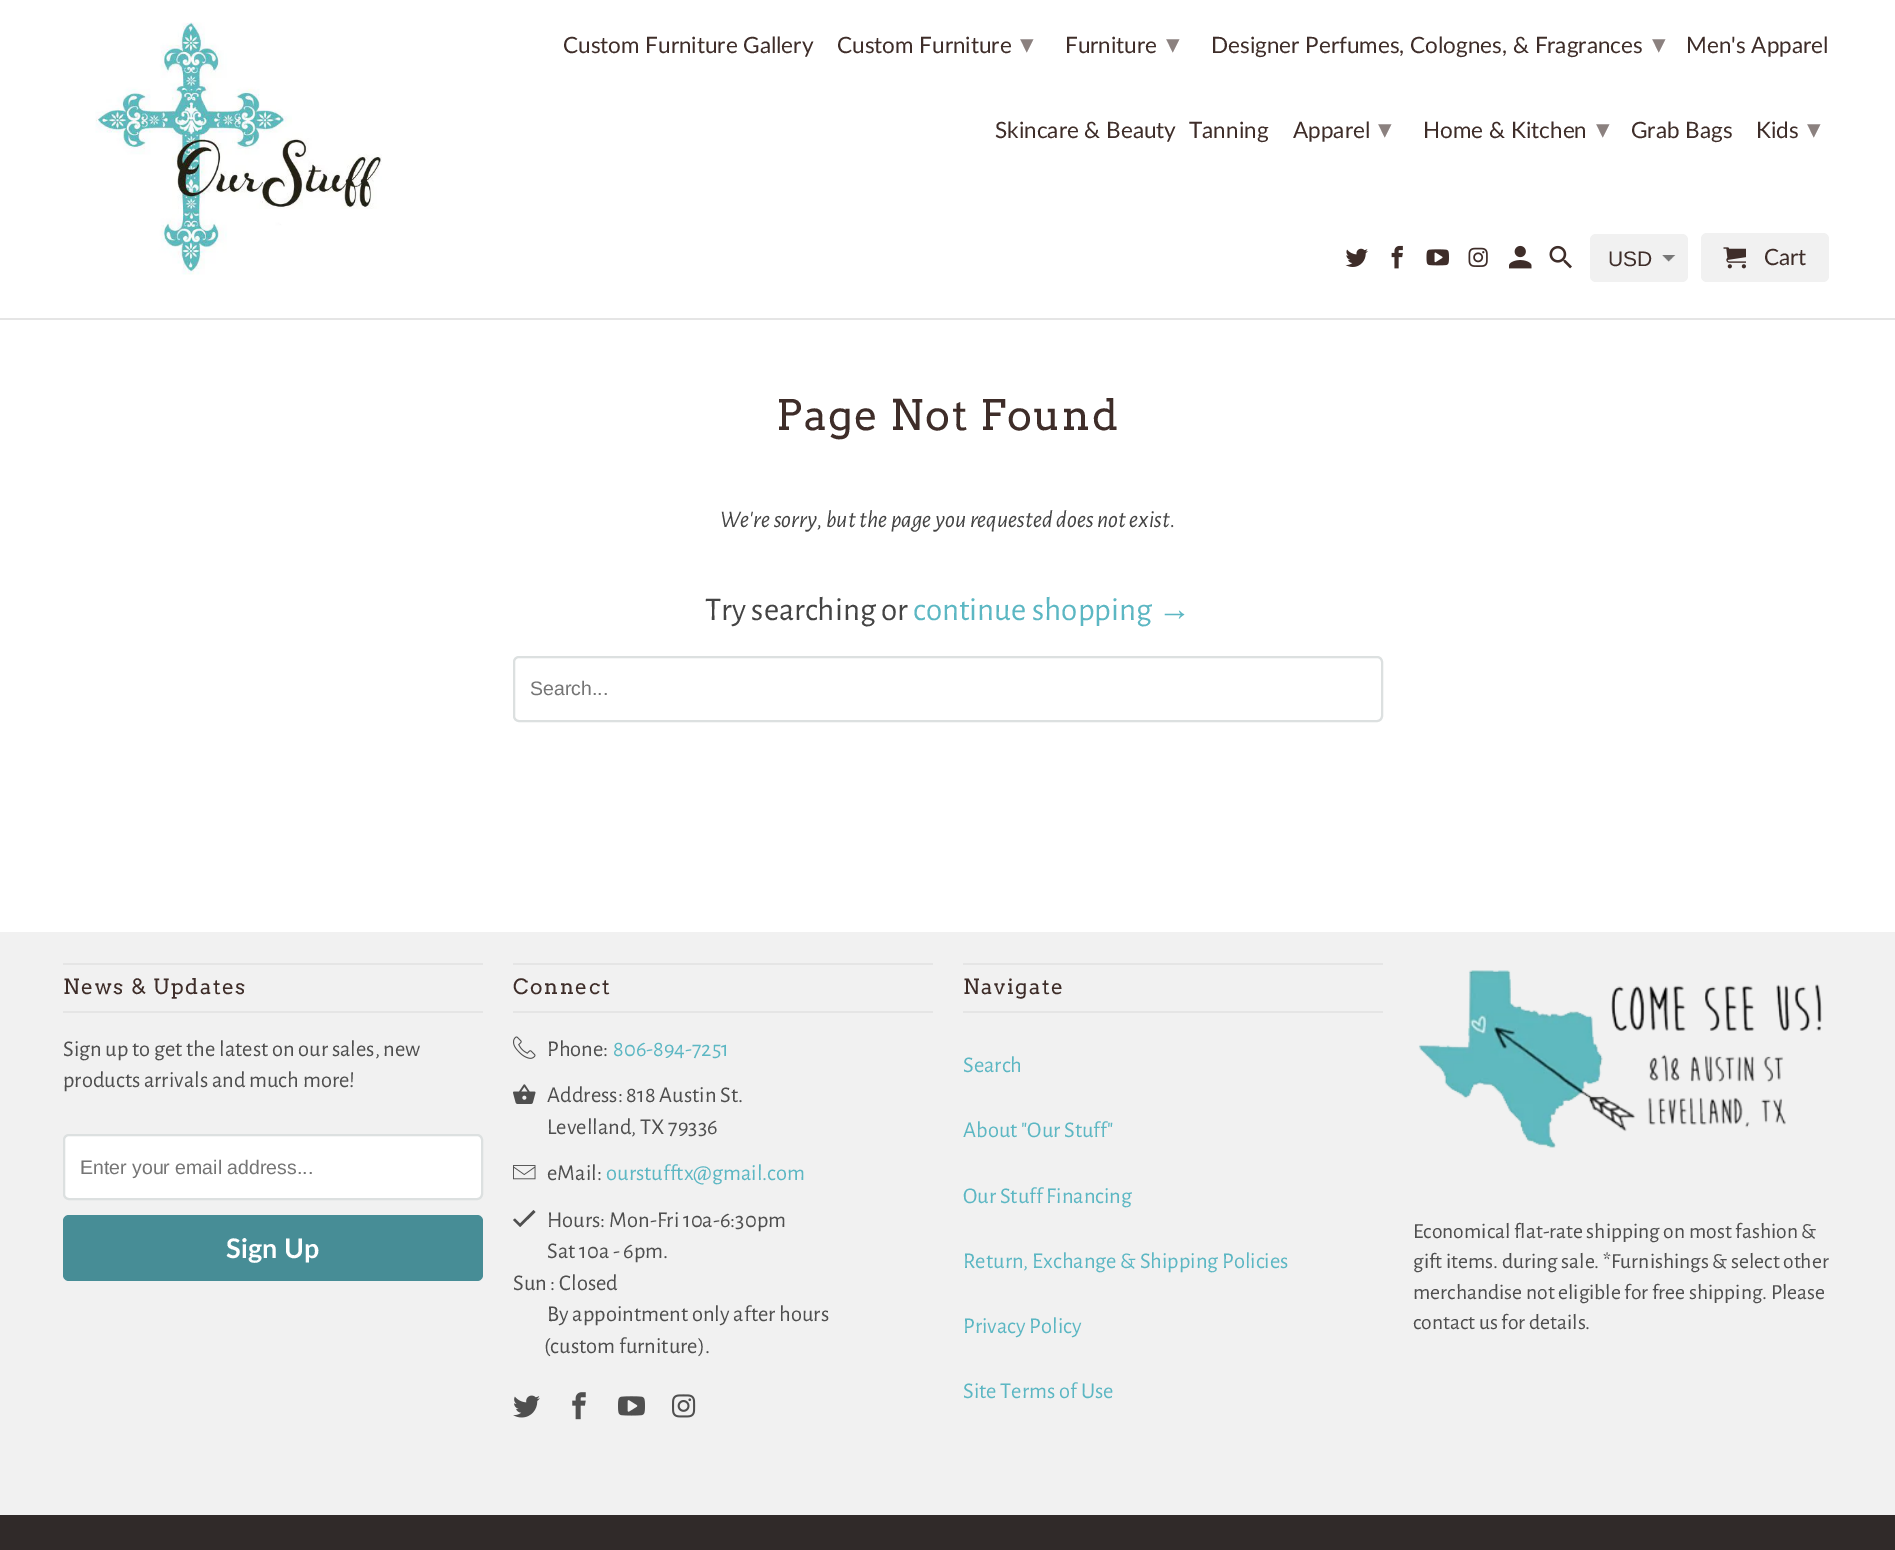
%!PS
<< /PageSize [1895 1550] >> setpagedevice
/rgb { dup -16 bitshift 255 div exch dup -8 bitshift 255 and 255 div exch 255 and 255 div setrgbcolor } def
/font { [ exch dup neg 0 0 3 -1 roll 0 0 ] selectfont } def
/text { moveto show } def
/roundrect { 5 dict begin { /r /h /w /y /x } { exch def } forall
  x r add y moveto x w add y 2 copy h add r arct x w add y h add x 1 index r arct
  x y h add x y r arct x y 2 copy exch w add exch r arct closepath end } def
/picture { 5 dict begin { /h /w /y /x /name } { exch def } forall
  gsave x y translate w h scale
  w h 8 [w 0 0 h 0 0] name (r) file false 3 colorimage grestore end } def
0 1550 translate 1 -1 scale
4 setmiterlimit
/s1 { /Lato-Regular 22.5 font 16#3E2D29 rgb } def
/s2 { /DejaVuSans-Regular 27 font 16#8B817F rgb } def
/s3 { /LiberationSans-Regular 21 font 16#3E2D29 rgb } def
/s4 { /AlegreyaSans-Italic 24 font 16#444444 rgb } def
/s5 { /AlegreyaSans-Regular 33 font 16#444444 rgb } def
/s6 { /AlegreyaSans-Regular 33 font 16#5CB7C3 rgb } def
/s7 { /LiberationSans-Regular 33 font 16#5CB7C3 rgb } def
/s8 { /LiberationSans-Regular 19.5 font 16#757575 rgb } def
/s9 { /AlegreyaSans-Regular 22.5 font 16#4F4F4F rgb } def
/s10 { /Lato-Bold 27 font 16#FFFFFF rgb } def
/s11 { /AlegreyaSans-Regular 22.5 font 16#5CB7C3 rgb } def
/s12 { /AlegreyaSans-Regular 21.6 font 16#4F4F4F rgb } def
16#FFFFFF rgb
0 0 1895 1550 rectfill
16#E5E5E5 rgb
0 318 1895 2 rectfill
(pic1.raw) 95 22 287 253 picture
s1
(Custom Furniture Gallery) 563 53 text
(Custom Furniture) 837 53 text
s2
(▾) 1020 53 text
s1
(Furniture) 1065 53 text
s2
(▾) 1166 53 text
s1
(Designer Perfumes, Colognes, & Fragrances) 1211 53 text
s2
(▾) 1652 53 text
s1
(Men's Apparel) 1686 53 text
(Skincare & Beauty) 995 138 text
(Tanning) 1189 138 text
(Apparel) 1293 138 text
s2
(▾) 1378 138 text
s1
(Home & Kitchen) 1423 138 text
s2
(▾) 1596 138 text
s1
(Grab Bags) 1631 138 text
(Kids) 1756 138 text
s2
(▾) 1807 138 text
(pic2.raw) 1345 248 23 19 picture
(pic3.raw) 1391 245 12 24 picture
(pic4.raw) 1426 249 23 17 picture
(pic5.raw) 1468 247 20 20 picture
(pic6.raw) 1509 245 23 24 picture
(pic7.raw) 1549 245 23 24 picture
16#F1F1F1 rgb
1590 234 98 48 6 roundrect fill
(pic8.raw) 1662 255 14 7 picture
s3
(USD) 1608 266 text
16#F1F1F1 rgb
1701 233 128 49 6 roundrect fill
(pic9.raw) 1723 247 23 22 picture
s1
(Cart) 1764 265 text
/Arvo-Regular 42 font
776 430 moveto 1.5 0 (Page Not Found) ashow
s4
(We're sorry, but the page you requested does not exist.) 720 527 text
s5
(Try searching or) 705 620 text
s6
(continue shopping) 913 620 text
s7
(→) 1158 620 text
16#DCE0E0 rgb
2 setlinewidth
514 657 868 64 5 roundrect stroke
s8
(Search...) 530 695 text
16#F1F1F1 rgb
0 932 1895 583 rectfill
16#E5E5E5 rgb
63 963 420 2 rectfill
63 1011 420 2 rectfill
/Arvo-Regular 21 font
16#3E2D29 rgb
63 994 moveto 1.5 0 (News & Updates) ashow
s9
(Sign up to get the latest on our sales, new) 63 1056 text
(products arrivals and much more!) 63 1087 text
16#FFFFFF rgb
64 1135 418 64 5 roundrect gsave fill grestore
16#DCE0E0 rgb
stroke
s8
(Enter your email address...) 80 1174 text
16#478D96 rgb
63 1215 420 66 6 roundrect fill
s10
(Sign Up) 226 1258 text
16#E5E5E5 rgb
513 963 420 2 rectfill
513 1011 420 2 rectfill
/Arvo-Regular 21 font
16#3E2D29 rgb
513 994 moveto 1.5 0 (Connect) ashow
(pic10.raw) 513 1036 23 23 picture
s9
(Phone:) 547 1056 text
s11
(806-894-7251) 613 1056 text
(pic11.raw) 513 1084 23 20 picture
s9
(Address: 818 Austin St.) 547 1102 text
(Levelland, TX 79336) 547 1134 text
(pic12.raw) 513 1165 23 15 picture
(eMail:) 547 1180 text
s11
(ourstufftx@gmail.com) 606 1180 text
16#4F4F4F rgb
520 1223.5 moveto 515 1218.5 lineto 513 1220 lineto 520 1227 lineto 535.5 1212 lineto 533.5 1210 lineto closepath fill
(Hours: Mon-Fri 10a-6:30pm) 547 1227 text
(Sat 10a - 6pm.) 547 1258 text
(Sun : Closed) 513 1290 text
(By appointment only after hours) 547 1321 text
(\(custom furniture\).) 544 1353 text
(pic13.raw) 513 1395 27 23 picture
(pic14.raw) 572 1392 14 28 picture
(pic15.raw) 618 1396 27 20 picture
(pic16.raw) 672 1394 24 24 picture
16#E5E5E5 rgb
963 963 420 2 rectfill
963 1011 420 2 rectfill
/Arvo-Regular 21 font
16#3E2D29 rgb
963 994 moveto 1.5 0 (Navigate) ashow
s11
(Search) 963 1072 text
(About "Our Stuff") 963 1137 text
(Our Stuff Financing) 963 1203 text
(Return, Exchange & Shipping Policies) 963 1268 text
(Privacy Policy) 963 1333 text
(Site Terms of Use) 963 1398 text
(pic17.raw) 1418 970 404 178 picture
s12
(Economical flat-rate shipping on most fashion &) 1413 1238 text
(gift items. during sale. *Furnishings & select other) 1413 1268 text
(merchandise not eligible for free shipping. Please) 1413 1299 text
(contact us for details.) 1413 1329 text
16#302A29 rgb
0 1515 1895 35 rectfill
showpage
